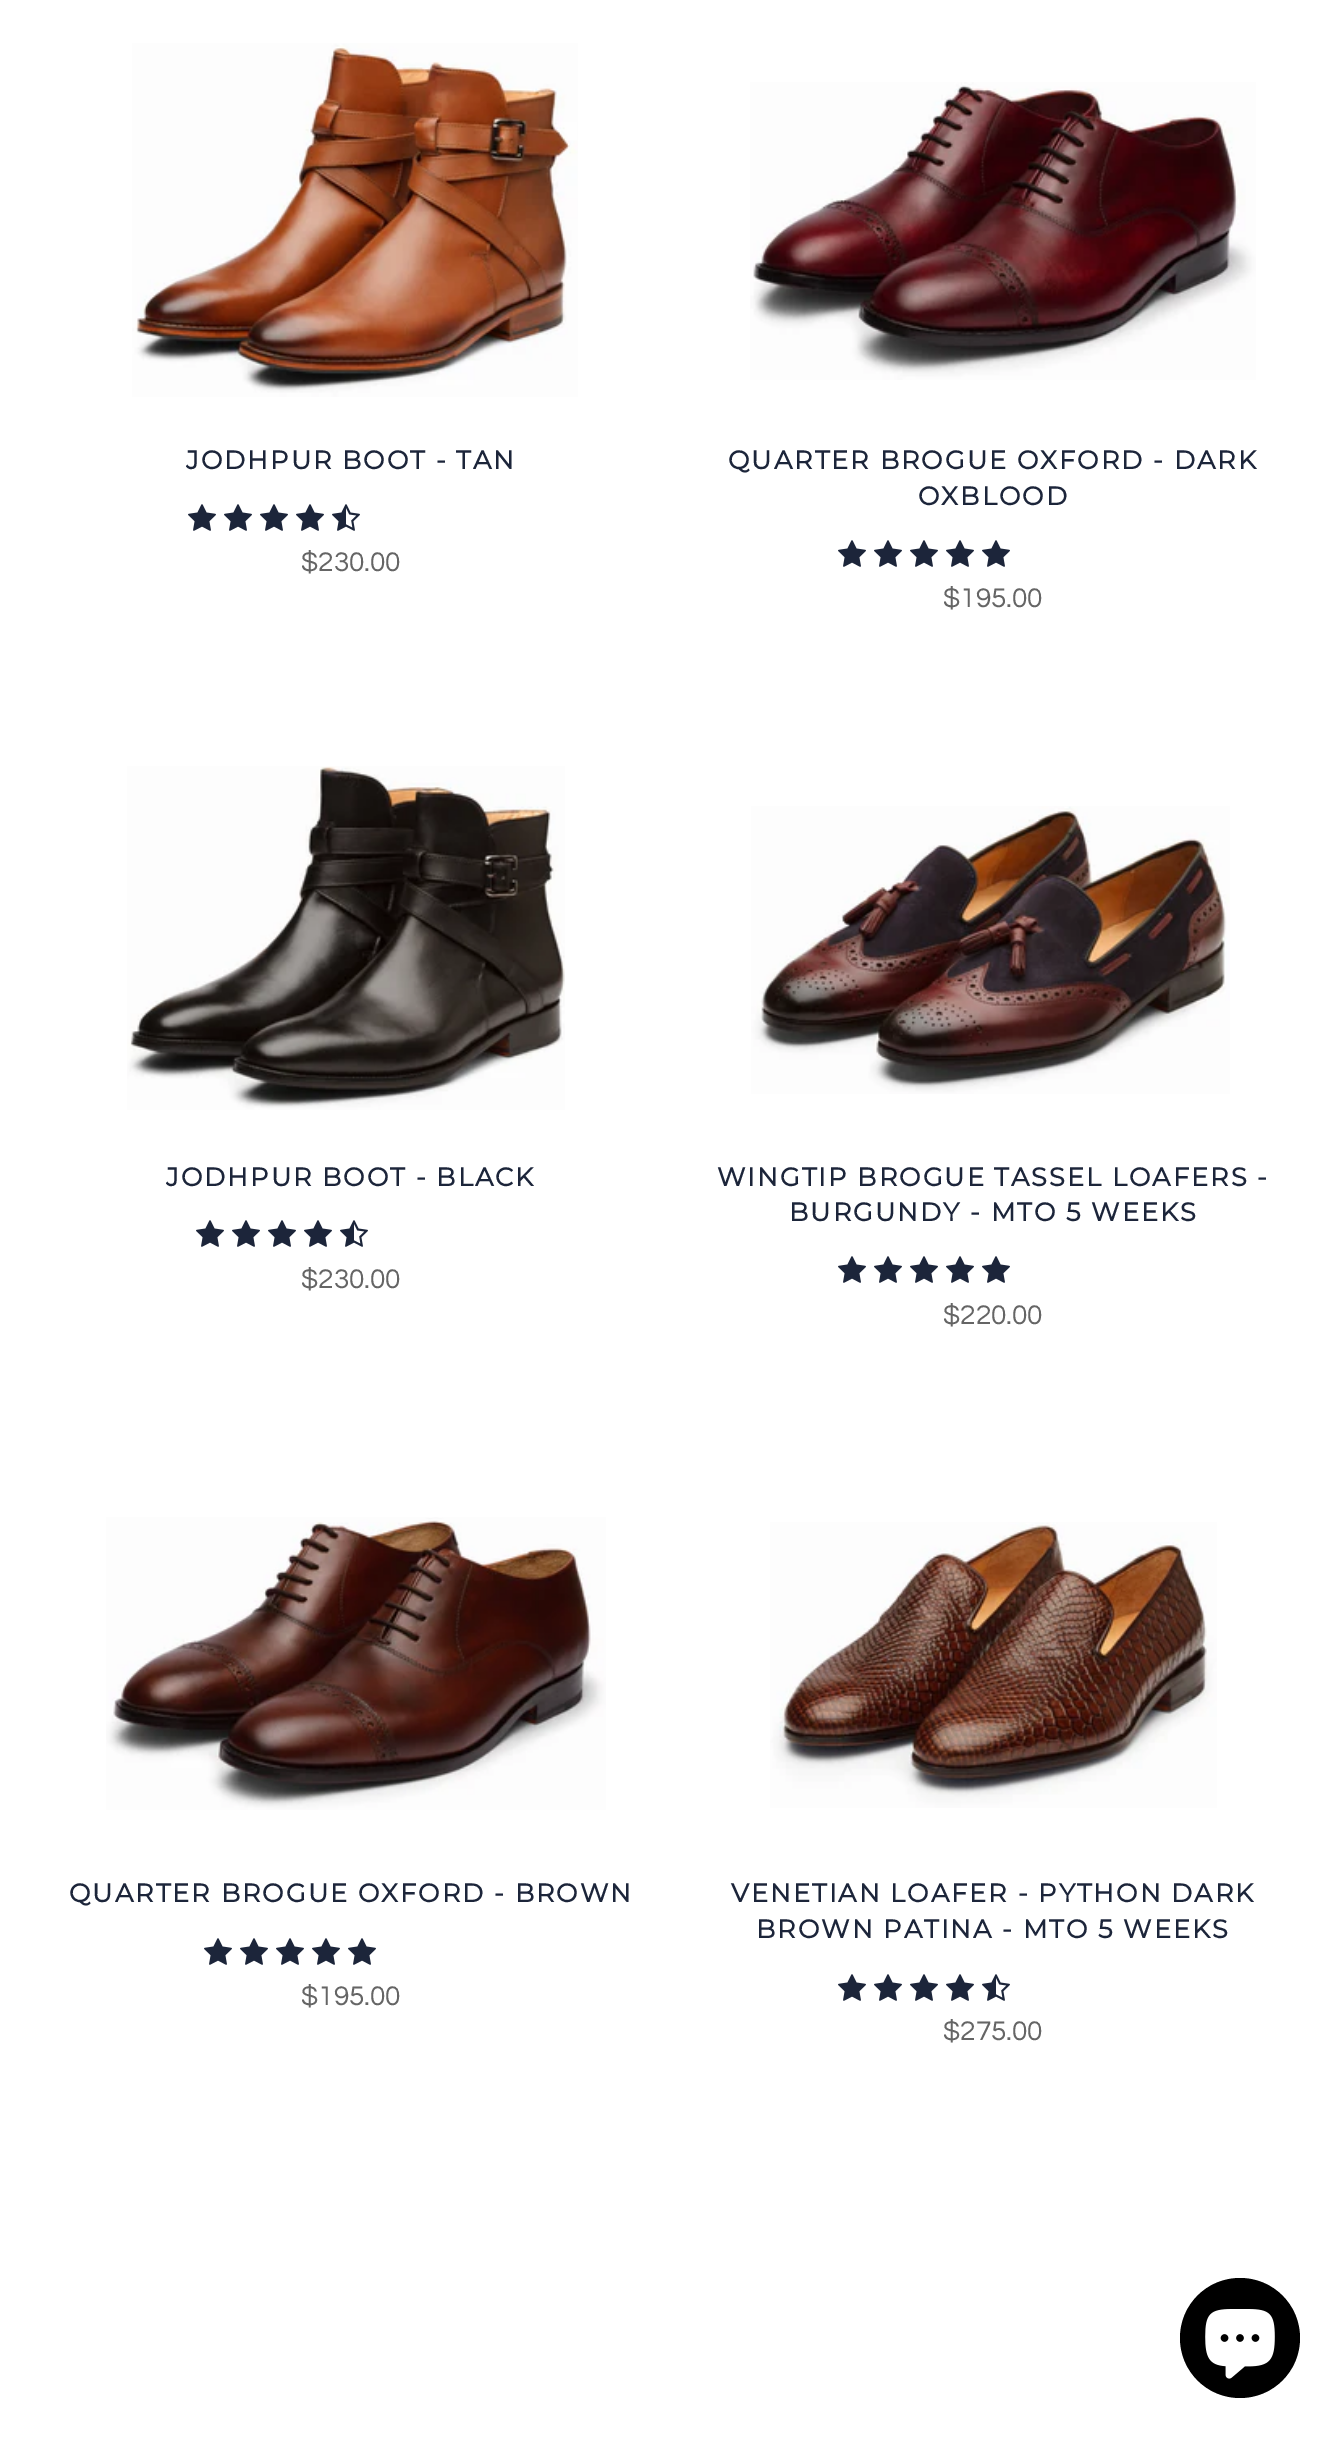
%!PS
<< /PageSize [1344 2440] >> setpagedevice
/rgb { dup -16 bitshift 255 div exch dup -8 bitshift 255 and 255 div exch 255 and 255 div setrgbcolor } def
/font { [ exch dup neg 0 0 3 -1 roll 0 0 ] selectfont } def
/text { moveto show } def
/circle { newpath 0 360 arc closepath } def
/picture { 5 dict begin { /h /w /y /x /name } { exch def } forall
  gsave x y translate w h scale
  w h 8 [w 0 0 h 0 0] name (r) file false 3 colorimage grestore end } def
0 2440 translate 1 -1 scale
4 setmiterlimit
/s1 { /Questrial-Regular 28 font 16#656565 rgb } def
16#FFFFFF rgb
0 0 1344 2440 rectfill
(pic1.raw) 132 43 446 354 picture
/Montserrat-Bold 25.6 font
16#1C253A rgb
186 469 moveto 2 0 (JODHPUR BOOT - TAN) ashow
(pic2.raw) 188 504 28 27 picture
(pic2.raw) 224 504 28 27 picture
(pic2.raw) 260 504 28 27 picture
(pic2.raw) 296 504 28 27 picture
(pic3.raw) 332 504 28 27 picture
s1
($230.00) 301 571 text
(pic4.raw) 750 82 506 298 picture
/Montserrat-Bold 25.6 font
16#1C253A rgb
728 469 moveto 2 0 (QUARTER BROGUE OXFORD - DARK) ashow
918 505 moveto 2 0 (OXBLOOD) ashow
(pic2.raw) 838 540 28 27 picture
(pic2.raw) 874 540 28 27 picture
(pic2.raw) 910 540 28 27 picture
(pic2.raw) 946 540 28 27 picture
(pic2.raw) 982 540 28 27 picture
s1
($195.00) 943 607 text
(pic5.raw) 127 766 438 344 picture
/Montserrat-Bold 25.6 font
16#1C253A rgb
166 1186 moveto 2 0 (JODHPUR BOOT - BLACK) ashow
(pic2.raw) 196 1220 28 27 picture
(pic2.raw) 232 1220 28 27 picture
(pic2.raw) 268 1220 28 27 picture
(pic2.raw) 304 1220 28 27 picture
(pic3.raw) 340 1220 28 27 picture
s1
($230.00) 301 1288 text
(pic6.raw) 751 806 479 288 picture
/Montserrat-Bold 25.6 font
16#1C253A rgb
717 1186 moveto 2 0 (WINGTIP BROGUE TASSEL LOAFERS -) ashow
789 1221 moveto 2 0 (BURGUNDY - MTO 5 WEEKS) ashow
(pic2.raw) 838 1256 28 27 picture
(pic2.raw) 874 1256 28 27 picture
(pic2.raw) 910 1256 28 27 picture
(pic2.raw) 946 1256 28 27 picture
(pic2.raw) 982 1256 28 27 picture
s1
($220.00) 943 1324 text
(pic7.raw) 106 1517 500 293 picture
/Montserrat-Bold 25.6 font
16#1C253A rgb
69 1902 moveto 2 0 (QUARTER BROGUE OXFORD - BROWN) ashow
(pic2.raw) 204 1938 28 27 picture
(pic2.raw) 240 1938 28 27 picture
(pic2.raw) 276 1938 28 27 picture
(pic2.raw) 312 1938 28 27 picture
(pic2.raw) 348 1938 28 27 picture
s1
($195.00) 301 2005 text
(pic8.raw) 770 1522 447 286 picture
/Montserrat-Bold 25.6 font
16#1C253A rgb
731 1902 moveto 2 0 (VENETIAN LOAFER - PYTHON DARK) ashow
756 1938 moveto 2 0 (BROWN PATINA - MTO 5 WEEKS) ashow
(pic2.raw) 838 1974 28 27 picture
(pic2.raw) 874 1974 28 27 picture
(pic2.raw) 910 1974 28 27 picture
(pic2.raw) 946 1974 28 27 picture
(pic3.raw) 982 1974 28 27 picture
s1
($275.00) 943 2040 text
16#000000 rgb
1240 2338 60 circle fill
(pic9.raw) 1205 2309 70 70 picture
showpage
